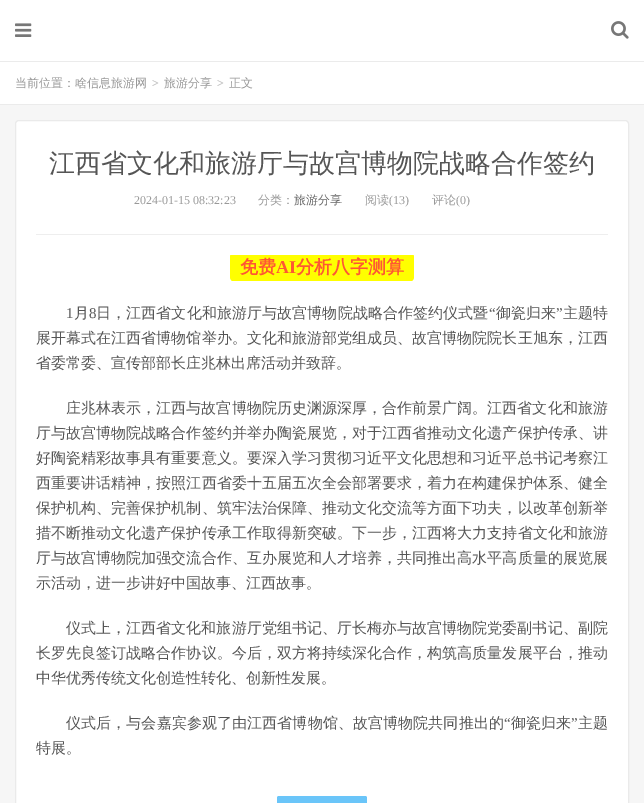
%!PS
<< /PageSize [644 803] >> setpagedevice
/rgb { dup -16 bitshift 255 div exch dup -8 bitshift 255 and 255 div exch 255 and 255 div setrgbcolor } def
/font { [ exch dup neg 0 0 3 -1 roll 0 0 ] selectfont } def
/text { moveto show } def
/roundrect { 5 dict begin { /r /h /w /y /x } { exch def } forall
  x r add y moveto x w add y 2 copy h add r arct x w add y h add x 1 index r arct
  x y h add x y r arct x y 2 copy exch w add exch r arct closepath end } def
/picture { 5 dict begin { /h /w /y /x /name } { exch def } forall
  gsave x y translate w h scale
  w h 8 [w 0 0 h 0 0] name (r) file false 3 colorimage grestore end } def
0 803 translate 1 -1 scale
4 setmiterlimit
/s1 { /WenQuanYiZenHei-Medium 12 font 16#999999 rgb } def
/s2 { /LiberationSerif-Bold 12 font 16#BBBBBB rgb } def
/s3 { /WenQuanYiZenHei-Medium 26 font 16#555555 rgb } def
/s4 { /LiberationSerif-Regular 12 font 16#999999 rgb } def
/s5 { /WenQuanYiZenHei-Medium 12 font 16#666666 rgb } def
/s6 { /WenQuanYiZenHei-Bold 18 font 16#FF5733 rgb } def
/s7 { /LiberationSerif-Bold 18 font 16#FF5733 rgb } def
/s8 { /WenQuanYiZenHei-Medium 15 font 16#555555 rgb } def
16#F6F6F6 rgb
0 0 644 803 rectfill
16#FFFFFF rgb
0 0 644 61 rectfill
16#EBEBEB rgb
0 61 644 1 rectfill
(pic1.raw) 15 23 17 14 picture
(pic2.raw) 611 21 18 18 picture
16#FFFFFF rgb
0 62 644 42 rectfill
16#EBEBEB rgb
0 104 644 1 rectfill
s1
(当前位置：啥信息旅游网) 15 87 text
s2
(>) 152 87 text
s1
(旅游分享) 164 87 text
s2
(>) 217 87 text
s1
(正文) 229 87 text
16#FFFFFF rgb
15.5 120.5 613 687 3.5 roundrect gsave fill grestore
16#EAEAEA rgb
stroke
16#EEEEEE rgb
36 234 572 1 rectfill
s3
(江西省文化和旅游厅与故宫博物院战略合作签约) 49 172 text
s4
(2024-01-15 08:32:23) 134 204 text
s1
(分类：) 258 204 text
s5
(旅游分享) 294 204 text
s1
(阅读) 365 204 text
s4
(\(13\)) 389 204 text
s1
(评论) 432 204 text
s4
(\(0\)) 456 204 text
gsave
36 255 572 26 rectclip
16#FFFF00 rgb
230 252 184 30 5 roundrect fill
grestore
s6
(免费) 240 273 text
s7
(AI) 276 273 text
s6
(分析八字测算) 296 273 text
/LiberationSerif-Regular 15 font
16#555555 rgb
66 318 moveto 0.1 0 (1) ashow
/WenQuanYiZenHei-Medium 15 font
74 318 moveto 0.1 0 (月) ashow
/LiberationSerif-Regular 15 font
89 318 moveto 0.1 0 (8) ashow
/WenQuanYiZenHei-Medium 15 font
96 318 moveto 0.1 0 (日，江西省文化和旅游厅与故宫博物院战略合作签约仪式暨) ashow
/LiberationSerif-Regular 15 font
489 318 moveto 0.1 0 (“) ashow
/WenQuanYiZenHei-Medium 15 font
496 318 moveto 0.1 0 (御瓷归来) ashow
/LiberationSerif-Regular 15 font
556 318 moveto 0.1 0 (”) ashow
/WenQuanYiZenHei-Medium 15 font
563 318 moveto 0.1 0 (主题特) ashow
36 343 moveto 0.05 0 (展开幕式在江西省博物馆举办。文化和旅游部党组成员、故宫博物院院长王旭东，江西) ashow
(省委常委、宣传部部长庄兆林出席活动并致辞。) 36 368 text
66 413 moveto 0.05 0 (庄兆林表示，江西与故宫博物院历史渊源深厚，合作前景广阔。江西省文化和旅游) ashow
36 438 moveto 0.05 0 (厅与故宫博物院战略合作签约并举办陶瓷展览，对于江西省推动文化遗产保护传承、讲) ashow
36 463 moveto 0.05 0 (好陶瓷精彩故事具有重要意义。要深入学习贯彻习近平文化思想和习近平总书记考察江) ashow
36 488 moveto 0.05 0 (西重要讲话精神，按照江西省委十五届五次全会部署要求，着力在构建保护体系、健全) ashow
36 513 moveto 0.05 0 (保护机构、完善保护机制、筑牢法治保障、推动文化交流等方面下功夫，以改革创新举) ashow
36 538 moveto 0.05 0 (措不断推动文化遗产保护传承工作取得新突破。下一步，江西将大力支持省文化和旅游) ashow
36 563 moveto 0.05 0 (厅与故宫博物院加强交流合作、互办展览和人才培养，共同推出高水平高质量的展览展) ashow
(示活动，进一步讲好中国故事、江西故事。) 36 588 text
66 633 moveto 0.05 0 (仪式上，江西省文化和旅游厅党组书记、厅长梅亦与故宫博物院党委副书记、副院) ashow
36 658 moveto 0.05 0 (长罗先良签订战略合作协议。今后，双方将持续深化合作，构筑高质量发展平台，推动) ashow
(中华优秀传统文化创造性转化、创新性发展。) 36 683 text
66 728 moveto 0.1 0 (仪式后，与会嘉宾参观了由江西省博物馆、故宫博物院共同推出的) ashow
/LiberationSerif-Regular 15 font
504 728 moveto 0.1 0 (“) ashow
/WenQuanYiZenHei-Medium 15 font
511 728 moveto 0.1 0 (御瓷归来) ashow
/LiberationSerif-Regular 15 font
571 728 moveto 0.1 0 (”) ashow
/WenQuanYiZenHei-Medium 15 font
578 728 moveto 0.1 0 (主题) ashow
(特展。) 36 753 text
16#6AC5F9 rgb
277 796 90 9 2 roundrect fill
showpage
